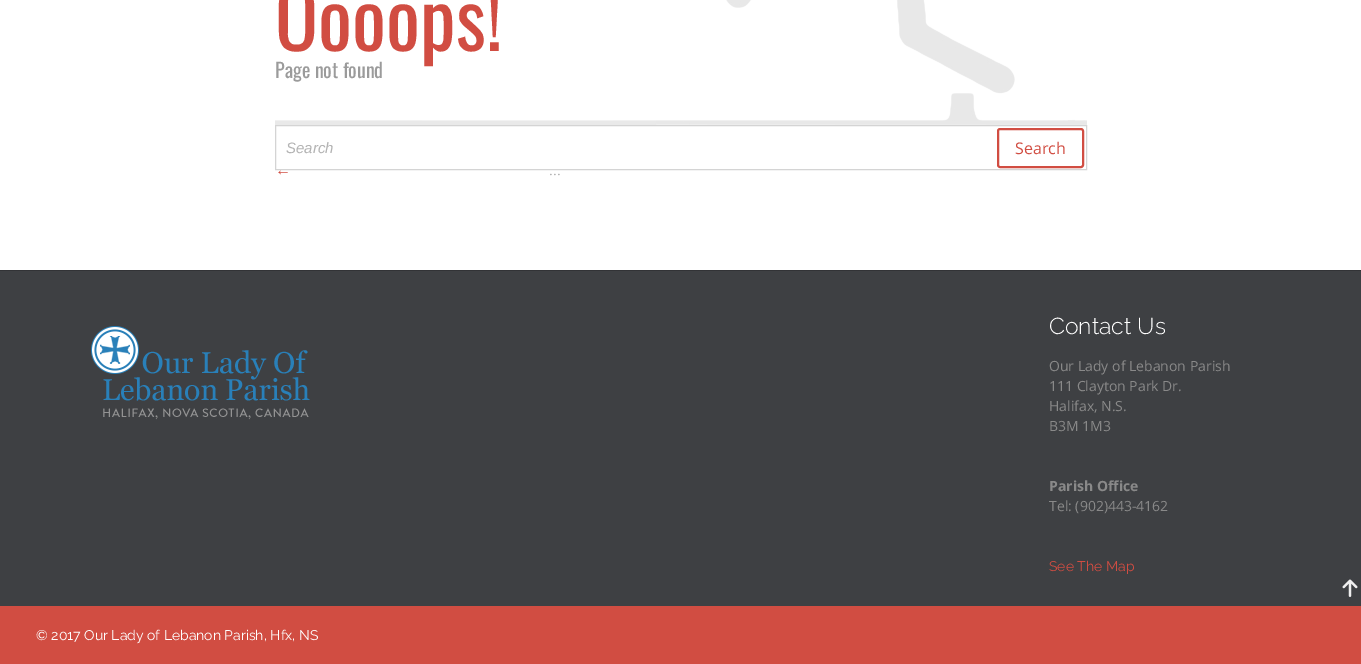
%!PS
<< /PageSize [1361 664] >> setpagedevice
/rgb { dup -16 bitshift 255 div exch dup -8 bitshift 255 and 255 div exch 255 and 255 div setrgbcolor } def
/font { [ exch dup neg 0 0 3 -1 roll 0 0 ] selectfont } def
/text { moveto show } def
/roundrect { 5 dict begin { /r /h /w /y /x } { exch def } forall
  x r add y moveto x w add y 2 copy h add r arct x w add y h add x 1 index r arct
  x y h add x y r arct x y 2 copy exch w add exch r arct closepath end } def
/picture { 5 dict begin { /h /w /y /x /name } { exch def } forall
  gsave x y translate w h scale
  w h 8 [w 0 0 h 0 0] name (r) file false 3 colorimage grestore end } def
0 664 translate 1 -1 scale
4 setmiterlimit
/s1 { /Oswald-Regular 80 font 16#D14D42 rgb } def
/s2 { /Oswald-Regular 20 font 16#9B9B9B rgb } def
/s3 { /LiberationSerif-Regular 16 font 16#D14D42 rgb } def
/s4 { /OpenSans-Light 16 font 16#9B9B9B rgb } def
/s5 { /LiberationSans-Italic 15 font 16#B3B3B3 rgb } def
/s6 { /OpenSans-Regular 16 font 16#D14D42 rgb } def
/s7 { /Raleway-Light 23 font 16#FFFFFF rgb } def
/s8 { /OpenSans-Regular 14 font 16#898989 rgb } def
/s9 { /OpenSans-Bold 14 font 16#898989 rgb } def
/s10 { /Raleway-Regular 14 font 16#D14D42 rgb } def
/s11 { /Raleway-Regular 14 font 16#FFFFFF rgb } def
16#FFFFFF rgb
0 0 1361 664 rectfill
(pic1.raw) 275 0 812 125 picture
s1
(Oooops!) 275 51 text
s2
(Page not found) 275 78 text
s3
(←) 275 175 text
s4
(...) 549 175 text
16#D4D4D4 rgb
275.5 125.5 811 44 rectstroke
s5
(Search) 286 153 text
16#D14D42 rgb
2 setlinewidth
998 129 85 38 2 roundrect stroke
s6
(Search) 1015 154 text
16#3E4043 rgb
0 271 1361 335 rectfill
16#323336 rgb
0 270 1361 1 rectfill
(pic2.raw) 91 326 219 94 picture
s7
(Contact Us) 1049 334 text
s8
(Our Lady of Lebanon Parish) 1049 371 text
(111 Clayton Park Dr.) 1049 391 text
(Halifax, N.S.) 1049 411 text
(B3M 1M3) 1049 431 text
s9
(Parish Office) 1049 491 text
s8
(Tel: \(902\)443-4162) 1049 511 text
s10
(See The Map) 1049 571 text
0 606 1361 58 rectfill
s11
(© 2017 Our Lady of Lebanon Parish, Hfx, NS) 36 640 text
(pic3.raw) 1342 579 16 18 picture
showpage
